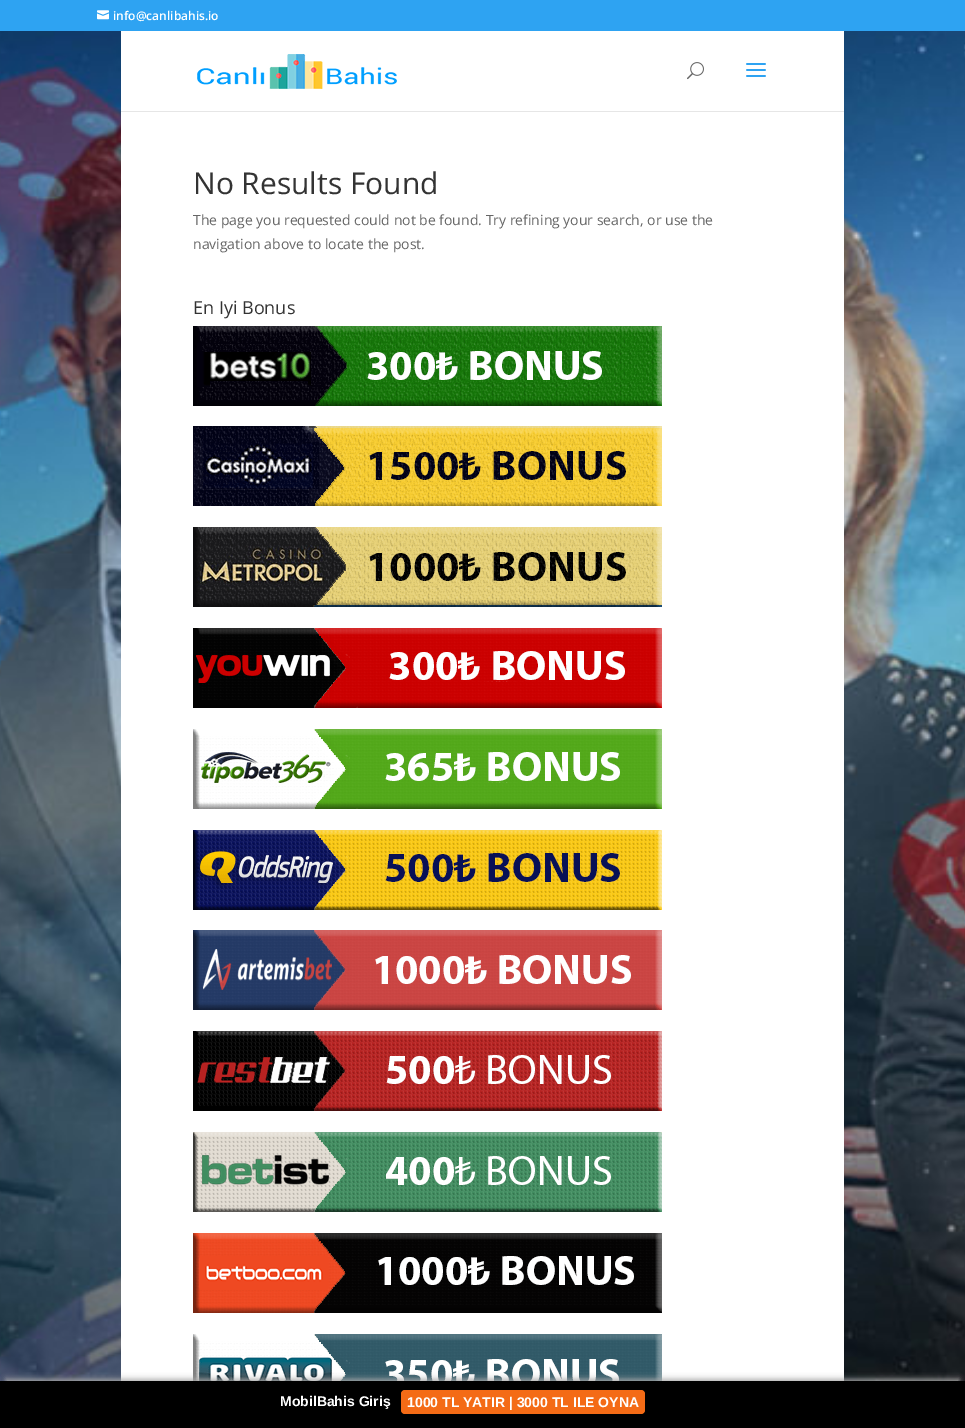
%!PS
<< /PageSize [965 1428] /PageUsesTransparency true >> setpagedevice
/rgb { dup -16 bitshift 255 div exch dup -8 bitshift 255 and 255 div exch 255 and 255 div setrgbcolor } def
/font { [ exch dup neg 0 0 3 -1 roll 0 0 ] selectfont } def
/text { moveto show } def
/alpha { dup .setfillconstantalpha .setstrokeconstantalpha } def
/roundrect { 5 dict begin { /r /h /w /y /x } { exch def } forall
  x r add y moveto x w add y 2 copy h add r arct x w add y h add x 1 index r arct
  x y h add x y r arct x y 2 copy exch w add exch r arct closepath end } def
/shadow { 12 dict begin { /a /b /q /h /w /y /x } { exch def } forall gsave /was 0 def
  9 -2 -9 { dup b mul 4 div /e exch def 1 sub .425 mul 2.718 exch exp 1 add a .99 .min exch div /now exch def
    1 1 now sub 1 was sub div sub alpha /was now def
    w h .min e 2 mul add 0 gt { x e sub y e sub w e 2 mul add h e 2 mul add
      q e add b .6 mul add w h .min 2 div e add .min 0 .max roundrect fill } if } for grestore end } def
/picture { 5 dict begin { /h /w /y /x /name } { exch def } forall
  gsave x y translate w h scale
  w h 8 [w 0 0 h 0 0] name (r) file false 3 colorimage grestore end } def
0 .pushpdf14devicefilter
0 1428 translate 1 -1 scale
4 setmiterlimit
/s1 { /OpenSans-SemiBold 12 font 16#FFFFFF rgb } def
/s2 { /OpenSans-Regular 30 font 16#333333 rgb } def
/s3 { /OpenSans-Regular 14 font 16#666666 rgb } def
/s4 { /OpenSans-Regular 18 font 16#333333 rgb } def
/s5 { /LiberationSans-Bold 14 font 16#FFFFFF rgb } def
16#FFFFFF rgb
0 0 965 1428 rectfill
(pic1.raw) 0 31 965 1350 picture
16#2EA3F2 rgb
0 0 965 31 rectfill
(pic2.raw) 97 10 12 10 picture
s1
(info@canlibahis.io) 113 20 text
16#E6E6E6 rgb
121 111 723 1 rectfill
16#FFFFFF rgb
121 31 723 80 rectfill
(pic3.raw) 197 54 200 35 picture
(pic4.raw) 687 62 17 18 picture
(pic5.raw) 746 63 20 14 picture
121 112 723 1269 rectfill
s2
(No Results Found) 193 194 text
s3
(The page you requested could not be found. Try refining your search, or use the) 193 225 text
(navigation above to locate the post.) 193 249 text
s4
(En Iyi Bonus) 193 314 text
(pic6.raw) 193 326 469 80 picture
(pic7.raw) 193 426 469 80 picture
(pic8.raw) 193 527 469 80 picture
(pic9.raw) 193 628 469 80 picture
(pic10.raw) 193 729 469 80 picture
(pic11.raw) 193 830 469 80 picture
(pic12.raw) 193 930 469 80 picture
(pic13.raw) 193 1031 469 80 picture
(pic14.raw) 193 1132 469 80 picture
(pic15.raw) 193 1233 469 80 picture
(pic16.raw) 193 1334 469 47 picture
16#AAAAAA rgb
6 1379 953 35 0 3 1 shadow
16#000000 rgb
0 1381 965 47 rectfill
s5
(MobilBahis Giriş) 280 1406 text
16#F46B16 rgb
401 1390 244 24 4 roundrect fill
s5
(1000 TL YATIR | 3000 TL ILE OYNA) 407 1407 text
.poppdf14devicefilter showpage
